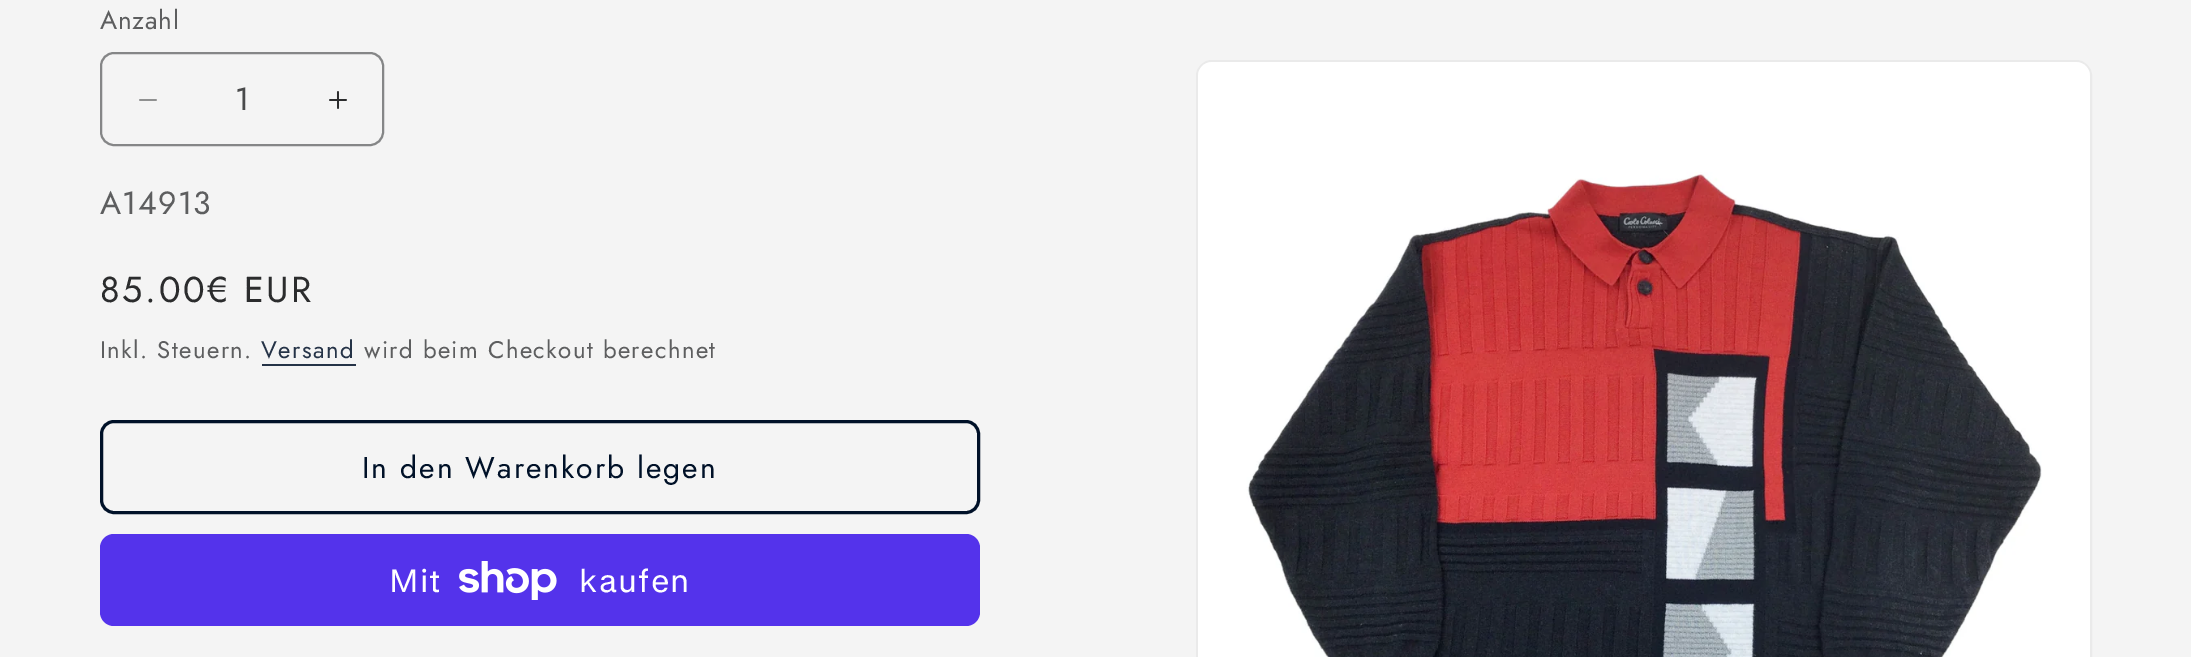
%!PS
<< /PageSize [2191 657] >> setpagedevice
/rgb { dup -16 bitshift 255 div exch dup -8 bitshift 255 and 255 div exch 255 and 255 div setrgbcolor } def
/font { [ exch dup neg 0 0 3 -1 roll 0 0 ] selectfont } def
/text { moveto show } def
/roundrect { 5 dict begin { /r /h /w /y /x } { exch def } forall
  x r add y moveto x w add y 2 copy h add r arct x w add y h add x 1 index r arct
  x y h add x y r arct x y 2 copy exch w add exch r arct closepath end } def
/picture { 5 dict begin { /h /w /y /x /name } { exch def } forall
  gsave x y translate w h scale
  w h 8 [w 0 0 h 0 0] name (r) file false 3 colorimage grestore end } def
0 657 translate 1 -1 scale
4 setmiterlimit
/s1 { /Jost-Regular 32 font 16#494A4B rgb } def
16#F4F4F4 rgb
0 0 2191 657 rectfill
/Jost-Regular 26 font
16#5D5E5F rgb
100 29 moveto 0.75 0 (Anzahl) ashow
(pic1.raw) 139 99 18 2 picture
(pic2.raw) 329 91 18 18 picture
16#858687 rgb
2 setlinewidth
101 53 282 92 13 roundrect stroke
s1
(1) 235 110 text
16#5D5E5F rgb
100 214 moveto 1.25 0 (A14913) ashow
/Jost-Regular 36 font
16#2B2C2D rgb
100 302 moveto 2.6 0 (85.00€ EUR) ashow
/Jost-Regular 24 font
16#5D5E5F rgb
100 358 moveto 1.4 0 (Inkl. Steuern.) ashow
16#253347 rgb
261 358 moveto 1.4 0 (Versand) ashow
262 364 94 2 rectfill
16#5D5E5F rgb
364 358 moveto 1.4 0 (wird beim Checkout berechnet) ashow
16#001128 rgb
3 setlinewidth
101.5 421.5 877 91 12.5 roundrect stroke
/Jost-Regular 30 font
362 478 moveto 2 0 (In den Warenkorb legen) ashow
16#5433EB rgb
100 534 880 92 14 roundrect fill
/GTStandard-Regular 32 font
16#FFFFFF rgb
389 592 moveto 1.25 0 (Mit) ashow
(pic3.raw) 459 561 98 39 picture
579 592 moveto 1.25 0 (kaufen) ashow
16#EAEAEA rgb
2 setlinewidth
1197 61 894 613 15 roundrect stroke
(pic4.raw) 1198 62 892 595 picture
showpage
